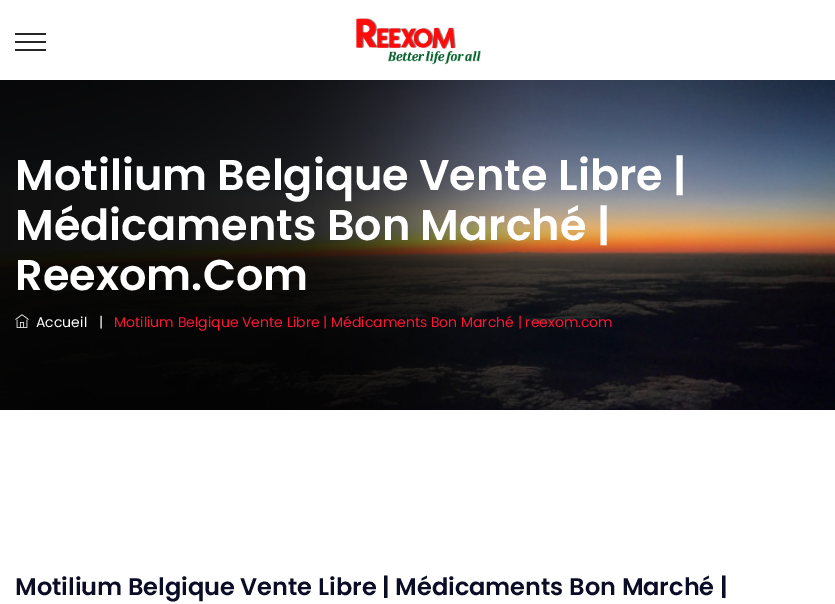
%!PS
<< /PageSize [835 604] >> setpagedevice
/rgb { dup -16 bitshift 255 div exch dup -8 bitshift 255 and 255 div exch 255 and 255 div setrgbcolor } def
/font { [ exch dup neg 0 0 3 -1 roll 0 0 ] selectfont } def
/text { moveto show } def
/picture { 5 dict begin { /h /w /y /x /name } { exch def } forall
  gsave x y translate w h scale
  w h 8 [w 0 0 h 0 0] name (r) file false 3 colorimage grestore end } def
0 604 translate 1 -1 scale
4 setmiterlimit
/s1 { /Poppins-SemiBold 43 font 16#FFFFFF rgb } def
/s2 { /Poppins-Regular 14 font 16#FFFFFF rgb } def
/s3 { /Poppins-Regular 14 font 16#F71735 rgb } def
/s4 { /Poppins-SemiBold 24 font 16#0B0C26 rgb } def
16#FFFFFF rgb
0 0 835 604 rectfill
16#262626 rgb
15 33 31 2 rectfill
15 41 31 2 rectfill
15 49 31 2 rectfill
(pic1.raw) 356 18 125 47 picture
(pic2.raw) 0 80 835 330 picture
s1
(Motilium Belgique Vente Libre |) 15 190 text
(Médicaments Bon Marché |) 15 240 text
(Reexom.Com) 15 290 text
(pic3.raw) 15 314 14 14 picture
s2
(Accueil) 36 327 text
(|) 99 327 text
s3
(Motilium Belgique Vente Libre | Médicaments Bon Marché | reexom.com) 114 327 text
s4
(Motilium Belgique Vente Libre | Médicaments Bon Marché |) 15 595 text
showpage
